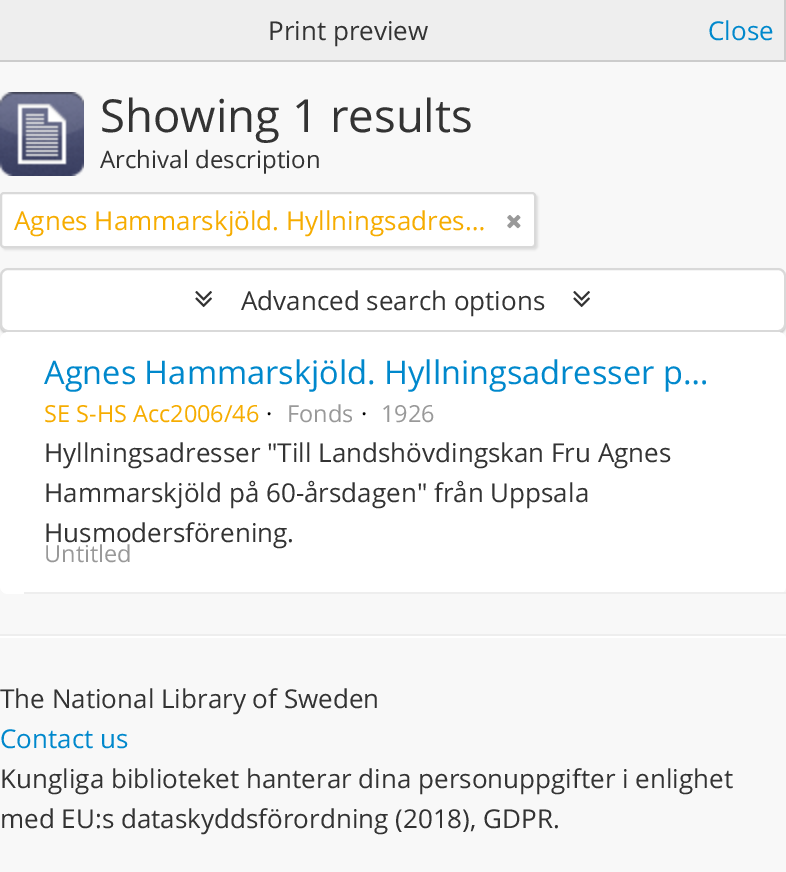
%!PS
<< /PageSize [786 872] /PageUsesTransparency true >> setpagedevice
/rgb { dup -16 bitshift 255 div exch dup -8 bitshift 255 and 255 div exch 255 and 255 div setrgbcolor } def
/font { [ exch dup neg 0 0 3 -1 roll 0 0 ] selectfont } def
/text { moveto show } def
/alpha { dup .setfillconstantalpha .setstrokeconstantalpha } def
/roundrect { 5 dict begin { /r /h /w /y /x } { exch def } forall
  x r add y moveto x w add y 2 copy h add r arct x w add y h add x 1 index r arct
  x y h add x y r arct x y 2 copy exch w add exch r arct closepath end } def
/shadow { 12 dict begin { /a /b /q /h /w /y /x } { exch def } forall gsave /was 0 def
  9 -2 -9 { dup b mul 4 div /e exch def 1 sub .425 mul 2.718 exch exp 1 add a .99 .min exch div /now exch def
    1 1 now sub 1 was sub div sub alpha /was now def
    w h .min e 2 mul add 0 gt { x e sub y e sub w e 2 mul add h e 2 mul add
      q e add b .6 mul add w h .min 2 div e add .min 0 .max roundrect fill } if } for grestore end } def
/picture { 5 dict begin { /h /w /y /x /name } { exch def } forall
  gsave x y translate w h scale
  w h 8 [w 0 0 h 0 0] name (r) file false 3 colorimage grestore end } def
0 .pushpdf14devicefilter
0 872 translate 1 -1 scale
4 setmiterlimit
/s1 { /OpenSans-Regular 26 font 16#333333 rgb } def
/s2 { /OpenSans-Regular 26 font 16#0088CC rgb } def
/s3 { /OpenSans-Regular 45.5 font 16#333333 rgb } def
/s4 { /OpenSans-Regular 24 font 16#333333 rgb } def
/s5 { /OpenSans-Regular 26 font 16#F6AC00 rgb } def
/s6 { /OpenSans-Regular 32.5 font 16#0088CC rgb } def
/s7 { /OpenSans-Regular 23.5 font 16#F6AC00 rgb } def
/s8 { /OpenSans-Regular 23.5 font 16#000000 rgb } def
/s9 { /OpenSans-Regular 23.5 font 16#999999 rgb } def
16#F8F8F8 rgb
0 0 786 872 rectfill
16#EEEEEE rgb
0 0 784 60 rectfill
16#CCCCCC rgb
784 0 2 62 rectfill
0 60 786 2 rectfill
s1
(Print preview) 268 40 text
s2
(Close) 708 40 text
(pic1.raw) 0 92 84 84 picture
s3
(Showing 1 results) 100 132 text
s4
(Archival description) 100 168 text
16#000000 rgb
2 194 536 56 4 1 0.1 shadow
16#FFFFFF rgb
1 193 534 54 3 roundrect gsave fill grestore
16#D9D9D9 rgb
2 setlinewidth
stroke
s5
(Agnes Hammarskjöld. Hyllningsadres…) 14 230 text
(pic2.raw) 507 215 14 14 picture
16#000000 rgb
0 270 786 64 8 1 0.2 shadow
16#FFFFFF rgb
1 269 784 62 7 roundrect gsave fill grestore
16#D9D9D9 rgb
stroke
(pic3.raw) 195 291 17 17 picture
s1
(Advanced search options) 241 310 text
(pic3.raw) 573 291 17 17 picture
16#FFFFFF rgb
0 332 786 262 8 roundrect fill
16#EEEEEE rgb
24 592 762 2 rectfill
s6
(Agnes Hammarskjöld. Hyllningsadresser p…) 44 384 text
s7
(SE S-HS Acc2006/46) 44 422 text
s8
(·) 266 422 text
s9
(Fonds) 287 422 text
s8
(·) 361 422 text
s9
(1926) 381 422 text
s1
(Hyllningsadresser "Till Landshövdingskan Fru Agnes) 44 462 text
(Hammarskjöld på 60-årsdagen" från Uppsala) 44 502 text
(Husmodersförening.) 44 542 text
s9
(Untitled) 44 562 text
16#EEEEEE rgb
0 634 786 2 rectfill
16#FFFFFF rgb
0 636 786 2 rectfill
s1
(The National Library of Sweden) 0 708 text
s2
(Contact us) 0 748 text
s1
(Kungliga biblioteket hanterar dina personuppgifter i enlighet) 0 788 text
(med EU:s dataskyddsförordning \(2018\), GDPR.) 0 828 text
.poppdf14devicefilter showpage
